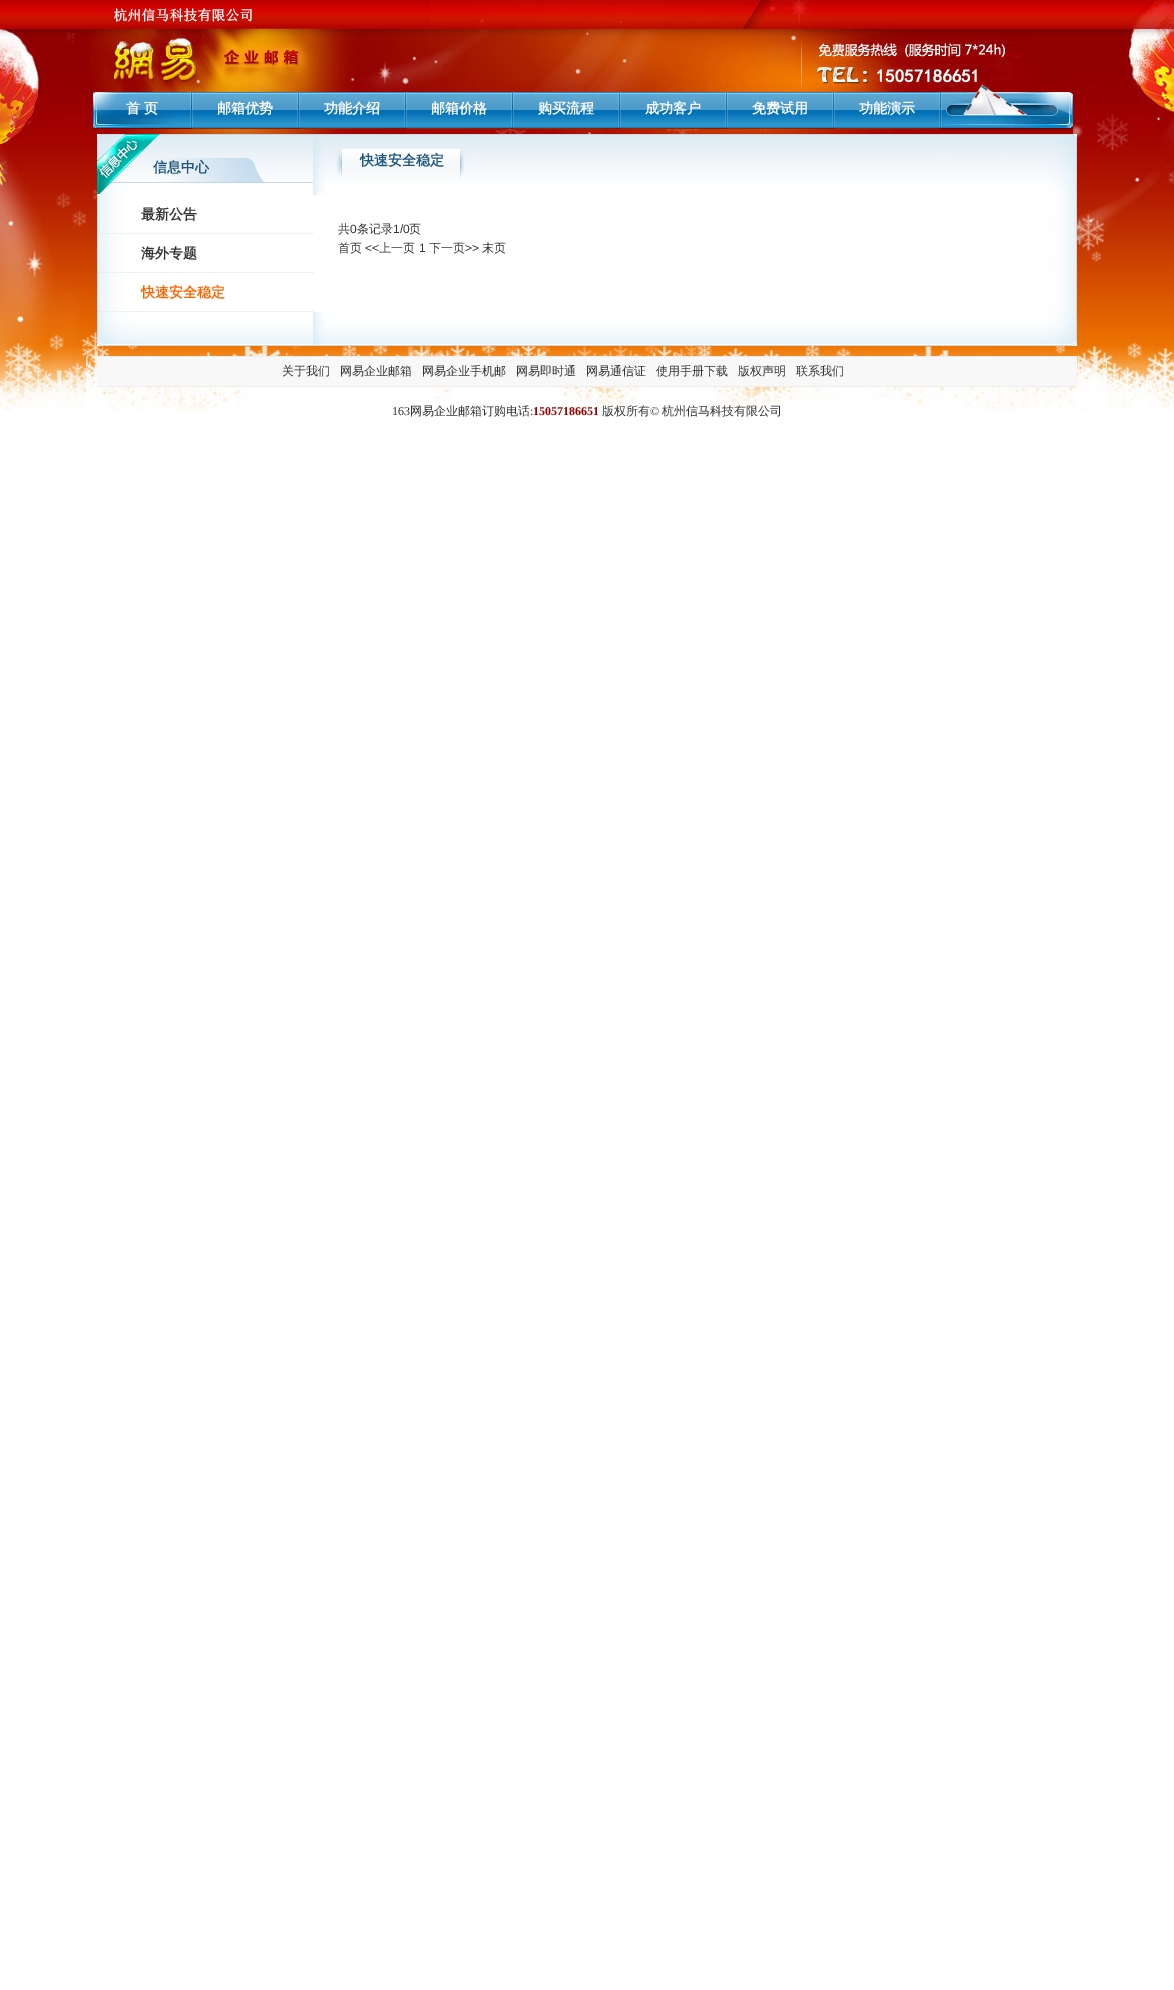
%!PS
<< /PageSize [1174 1990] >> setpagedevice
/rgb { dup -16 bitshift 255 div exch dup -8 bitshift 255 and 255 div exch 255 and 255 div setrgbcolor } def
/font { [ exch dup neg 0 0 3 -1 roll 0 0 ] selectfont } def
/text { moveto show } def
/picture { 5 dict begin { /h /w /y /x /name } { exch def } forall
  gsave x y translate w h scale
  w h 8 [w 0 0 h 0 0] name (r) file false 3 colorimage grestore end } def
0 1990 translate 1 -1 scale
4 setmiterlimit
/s1 { /WenQuanYiZenHei-Bold 14 font 16#FFFFFF rgb } def
/s2 { /WenQuanYiZenHei-Bold 14 font 16#1F587C rgb } def
/s3 { /WenQuanYiZenHei-Bold 14 font 16#333333 rgb } def
/s4 { /WenQuanYiZenHei-Bold 14 font 16#FF6600 rgb } def
/s5 { /WenQuanYiZenHei-Medium 12 font 16#333333 rgb } def
/s6 { /LiberationSans-Regular 12 font 16#333333 rgb } def
/s7 { /LiberationSerif-Regular 12 font 16#333333 rgb } def
/s8 { /LiberationSerif-Bold 12 font 16#990000 rgb } def
16#FFFFFF rgb
0 0 1174 1990 rectfill
(pic1.raw) 0 0 1174 412 picture
(pic2.raw) 93 92 848 37 picture
(pic3.raw) 93 92 98 36 picture
s1
(首 页) 126 113 text
(pic4.raw) 191 93 1 34 picture
(pic5.raw) 192 92 106 37 picture
(邮箱优势) 217 113 text
(pic4.raw) 298 93 1 34 picture
(pic5.raw) 299 92 106 37 picture
(功能介绍) 324 113 text
(pic4.raw) 405 93 1 34 picture
(pic5.raw) 406 92 106 37 picture
(邮箱价格) 431 113 text
(pic4.raw) 512 93 1 34 picture
(pic5.raw) 513 92 106 37 picture
(购买流程) 538 113 text
(pic4.raw) 619 93 1 34 picture
(pic5.raw) 620 92 106 37 picture
(成功客户) 645 113 text
(pic4.raw) 726 93 1 34 picture
(pic5.raw) 727 92 106 37 picture
(免费试用) 752 113 text
(pic4.raw) 833 93 1 34 picture
(pic5.raw) 834 92 106 37 picture
(功能演示) 859 113 text
(pic4.raw) 940 93 1 34 picture
(pic6.raw) 941 83 132 51 picture
(pic7.raw) 97 194 216 1 picture
(pic8.raw) 97 134 216 60 picture
s2
(信息中心) 153 172 text
(pic9.raw) 313 134 764 61 picture
(pic10.raw) 317 149 148 46 picture
(快速安全稳定) 360 165 text
(pic11.raw) 97 195 216 117 picture
(pic12.raw) 98 233 215 1 picture
s3
(最新公告) 141 219 text
(pic12.raw) 98 272 215 1 picture
(海外专题) 141 258 text
(pic12.raw) 98 311 215 1 picture
s4
(快速安全稳定) 141 297 text
16#FFFFFF rgb
313 195 731 117 rectfill
s5
(共) 338 233 text
s6
(0) 350 233 text
s5
(条记录) 357 233 text
s6
(1/0) 393 233 text
s5
(页) 409 233 text
(首页) 338 252 text
s6
(<<) 365 252 text
s5
(上一页) 379 252 text
s6
(1) 419 252 text
s5
(下一页) 429 252 text
s6
(>>) 465 252 text
s5
(末页) 482 252 text
(pic13.raw) 1044 195 33 117 picture
(pic14.raw) 97 312 216 34 picture
(pic15.raw) 313 312 731 34 picture
(pic16.raw) 313 312 12 33 picture
(pic17.raw) 1044 312 33 34 picture
16#F8F8F8 rgb
97 357 980 29 rectfill
16#EEEEEE rgb
97 356 980 1 rectfill
97 386 980 1 rectfill
s5
(关于我们) 282 375 text
(网易企业邮箱) 340 375 text
(网易企业手机邮) 422 375 text
(网易即时通) 516 375 text
(网易通信证) 586 375 text
(使用手册下载) 656 375 text
(版权声明) 738 375 text
(联系我们) 796 375 text
s7
(163) 392 415 text
s5
(网易企业邮箱订购电话) 410 415 text
s7
(:) 530 415 text
s8
(15057186651) 533 415 text
s5
(版权所有) 602 415 text
s7
(©) 650 415 text
s5
(杭州信马科技有限公司) 662 415 text
showpage
